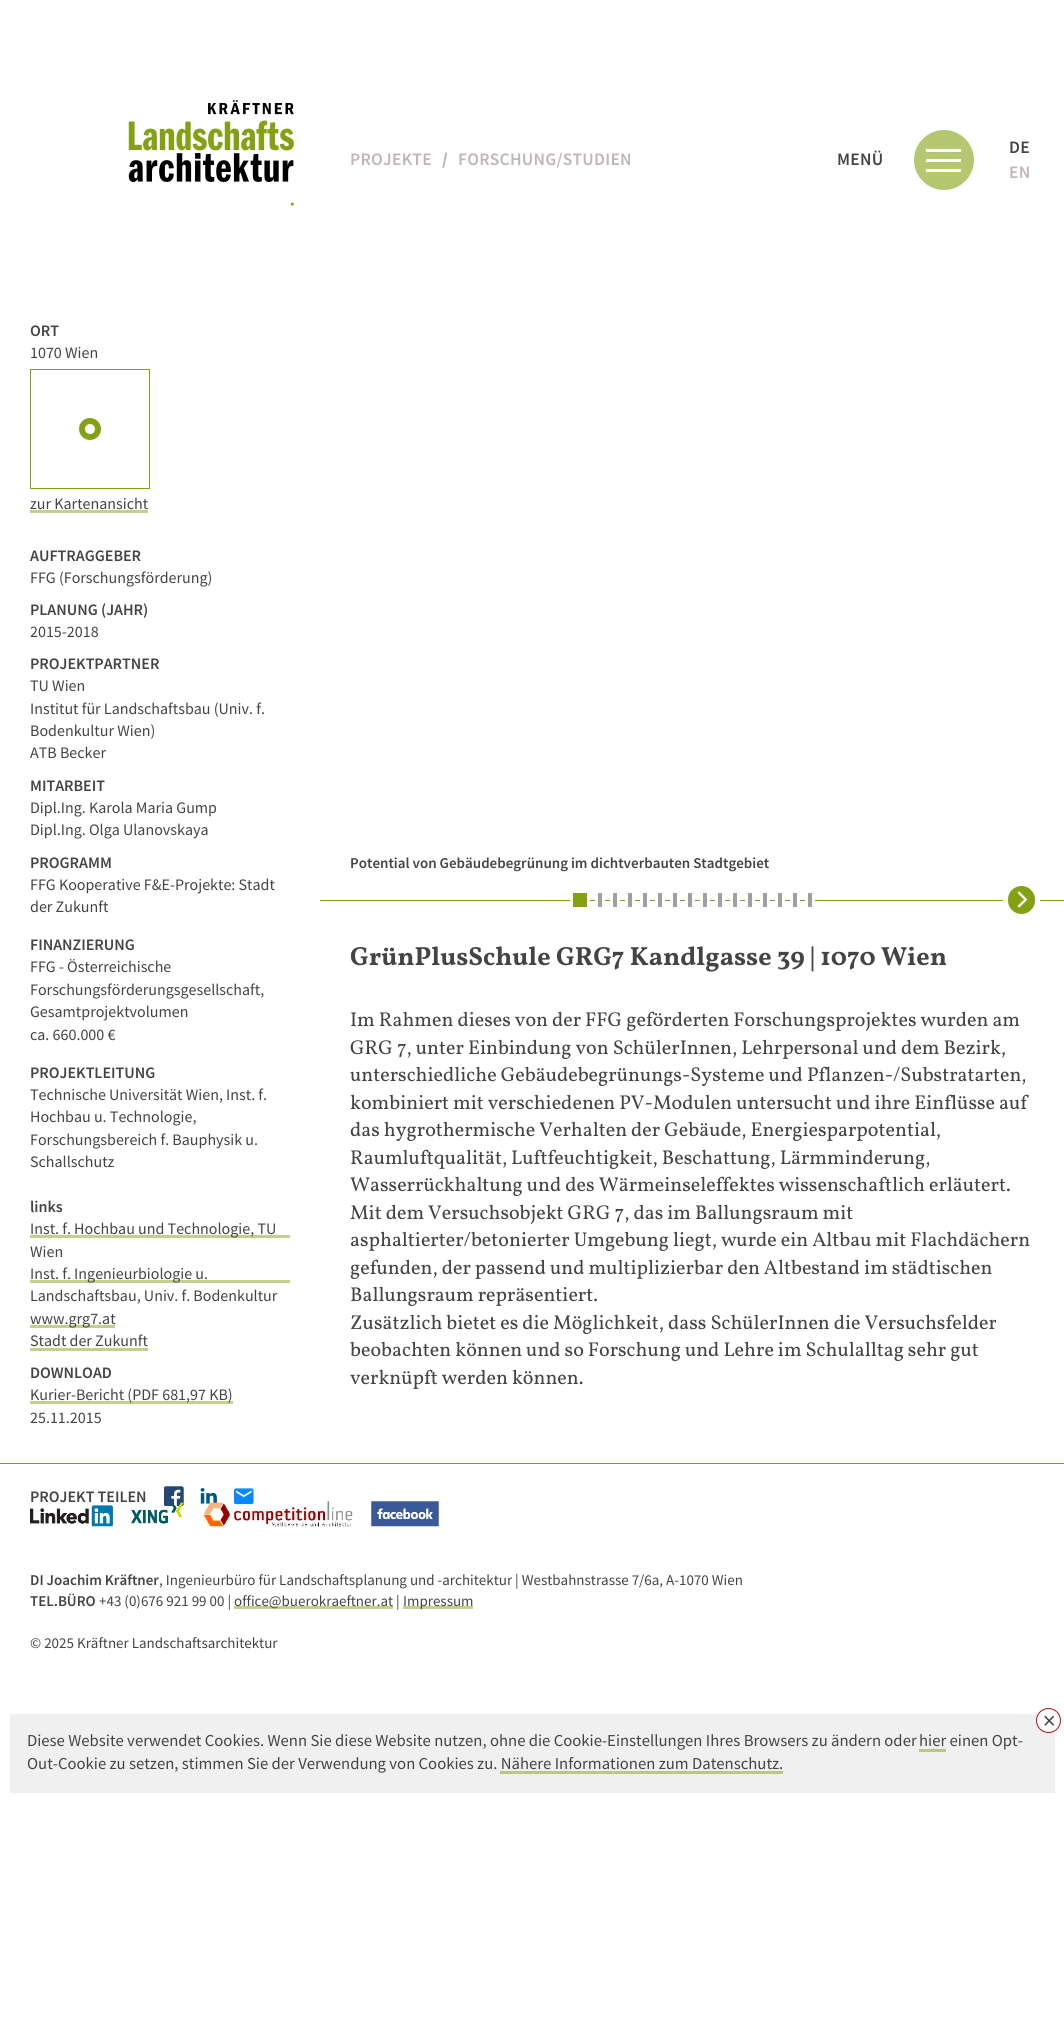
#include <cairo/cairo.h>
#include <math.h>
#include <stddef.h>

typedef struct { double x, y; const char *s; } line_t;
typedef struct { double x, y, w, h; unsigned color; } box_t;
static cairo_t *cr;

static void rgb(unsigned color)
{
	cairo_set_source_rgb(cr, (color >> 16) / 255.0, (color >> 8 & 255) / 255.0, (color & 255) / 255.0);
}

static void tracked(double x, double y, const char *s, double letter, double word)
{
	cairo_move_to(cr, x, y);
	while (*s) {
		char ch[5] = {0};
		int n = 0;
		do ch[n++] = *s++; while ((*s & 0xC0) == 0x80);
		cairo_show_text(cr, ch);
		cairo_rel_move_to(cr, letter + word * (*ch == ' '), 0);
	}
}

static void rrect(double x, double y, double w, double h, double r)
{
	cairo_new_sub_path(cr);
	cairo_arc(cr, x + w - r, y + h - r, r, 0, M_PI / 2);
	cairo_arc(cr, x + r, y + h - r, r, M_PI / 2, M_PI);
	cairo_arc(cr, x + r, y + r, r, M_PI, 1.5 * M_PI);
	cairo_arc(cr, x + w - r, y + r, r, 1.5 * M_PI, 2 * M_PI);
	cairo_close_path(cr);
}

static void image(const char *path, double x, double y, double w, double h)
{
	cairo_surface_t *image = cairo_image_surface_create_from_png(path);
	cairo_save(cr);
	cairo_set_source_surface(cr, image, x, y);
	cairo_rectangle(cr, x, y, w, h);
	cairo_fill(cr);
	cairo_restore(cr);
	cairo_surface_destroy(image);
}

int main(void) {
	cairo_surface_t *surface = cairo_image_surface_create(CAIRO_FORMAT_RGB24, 1064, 2023);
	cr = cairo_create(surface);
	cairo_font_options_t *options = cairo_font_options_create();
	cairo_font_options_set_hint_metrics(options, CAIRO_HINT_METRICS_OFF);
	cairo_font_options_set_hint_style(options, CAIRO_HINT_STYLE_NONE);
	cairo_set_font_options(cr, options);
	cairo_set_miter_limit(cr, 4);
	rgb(0xffffff);
	cairo_paint(cr);
	image("img/1.png", 128, 100, 166, 106);
	rgb(0xb5c771);
	cairo_arc(cr, 944, 160, 30, 0, 2 * M_PI);
	cairo_fill(cr);
	{
		static const box_t items[] = {
			{926, 149, 35, 3, 0xffffff},
			{926, 159, 35, 3, 0xffffff},
			{926, 169, 35, 3, 0xffffff},
		};
		for (size_t i = 0; i < sizeof items / sizeof *items; i++) {
			rgb(items[i].color);
			cairo_rectangle(cr, items[i].x, items[i].y, items[i].w, items[i].h);
			cairo_fill(cr);
		}
	}
	cairo_rectangle(cr, 30.5, 369.5, 119, 119);
	rgb(0x84a113);
	cairo_set_line_width(cr, 1);
	cairo_stroke(cr);
	cairo_arc(cr, 90, 429, 8, 0, 2 * M_PI);
	cairo_set_line_width(cr, 6);
	cairo_stroke(cr);
	{
		static const box_t items[] = {
			{30, 510, 118, 3, 0xc2d089},
			{30, 1235, 260, 3, 0xc2d089},
			{30, 1280, 260, 3, 0xc2d089},
			{30, 1325, 85, 3, 0xc2d089},
			{30, 1348, 118, 3, 0xc2d089},
			{30, 1401, 203, 3, 0xc2d089},
		};
		for (size_t i = 0; i < sizeof items / sizeof *items; i++) {
			rgb(items[i].color);
			cairo_rectangle(cr, items[i].x, items[i].y, items[i].w, items[i].h);
			cairo_fill(cr);
		}
	}
	image("img/2.png", 164, 1486, 20, 20);
	image("img/3.png", 200, 1488, 17, 16);
	image("img/4.png", 234, 1488, 20, 17);
	rgb(0x84a113);
	cairo_rectangle(cr, 320, 900, 744, 1);
	cairo_fill(cr);
	cairo_rectangle(cr, 571.5, 891.5, 17, 17);
	cairo_fill_preserve(cr);
	rgb(0xffffff);
	cairo_set_line_width(cr, 3);
	cairo_stroke(cr);
	rgb(0xa1a1a1);
	cairo_rectangle(cr, 596.5, 891.5, 7, 17);
	cairo_fill_preserve(cr);
	rgb(0xffffff);
	cairo_stroke(cr);
	rgb(0xa1a1a1);
	cairo_rectangle(cr, 611.5, 891.5, 7, 17);
	cairo_fill_preserve(cr);
	rgb(0xffffff);
	cairo_stroke(cr);
	rgb(0xa1a1a1);
	cairo_rectangle(cr, 626.5, 891.5, 7, 17);
	cairo_fill_preserve(cr);
	rgb(0xffffff);
	cairo_stroke(cr);
	rgb(0xa1a1a1);
	cairo_rectangle(cr, 641.5, 891.5, 7, 17);
	cairo_fill_preserve(cr);
	rgb(0xffffff);
	cairo_stroke(cr);
	rgb(0xa1a1a1);
	cairo_rectangle(cr, 656.5, 891.5, 7, 17);
	cairo_fill_preserve(cr);
	rgb(0xffffff);
	cairo_stroke(cr);
	rgb(0xa1a1a1);
	cairo_rectangle(cr, 671.5, 891.5, 7, 17);
	cairo_fill_preserve(cr);
	rgb(0xffffff);
	cairo_stroke(cr);
	rgb(0xa1a1a1);
	cairo_rectangle(cr, 686.5, 891.5, 7, 17);
	cairo_fill_preserve(cr);
	rgb(0xffffff);
	cairo_stroke(cr);
	rgb(0xa1a1a1);
	cairo_rectangle(cr, 701.5, 891.5, 7, 17);
	cairo_fill_preserve(cr);
	rgb(0xffffff);
	cairo_stroke(cr);
	rgb(0xa1a1a1);
	cairo_rectangle(cr, 716.5, 891.5, 7, 17);
	cairo_fill_preserve(cr);
	rgb(0xffffff);
	cairo_stroke(cr);
	rgb(0xa1a1a1);
	cairo_rectangle(cr, 731.5, 891.5, 7, 17);
	cairo_fill_preserve(cr);
	rgb(0xffffff);
	cairo_stroke(cr);
	rgb(0xa1a1a1);
	cairo_rectangle(cr, 746.5, 891.5, 7, 17);
	cairo_fill_preserve(cr);
	rgb(0xffffff);
	cairo_stroke(cr);
	rgb(0xa1a1a1);
	cairo_rectangle(cr, 761.5, 891.5, 7, 17);
	cairo_fill_preserve(cr);
	rgb(0xffffff);
	cairo_stroke(cr);
	rgb(0xa1a1a1);
	cairo_rectangle(cr, 776.5, 891.5, 7, 17);
	cairo_fill_preserve(cr);
	rgb(0xffffff);
	cairo_stroke(cr);
	rgb(0xa1a1a1);
	cairo_rectangle(cr, 791.5, 891.5, 7, 17);
	cairo_fill_preserve(cr);
	rgb(0xffffff);
	cairo_stroke(cr);
	rgb(0xa1a1a1);
	cairo_rectangle(cr, 806.5, 891.5, 7, 17);
	cairo_fill_preserve(cr);
	rgb(0xffffff);
	cairo_stroke(cr);
	rgb(0x84a113);
	rrect(1005.5, 883.5, 32, 33, 16);
	cairo_fill_preserve(cr);
	rgb(0xffffff);
	cairo_set_line_width(cr, 5);
	cairo_stroke(cr);
	image("img/5.png", 1017, 891, 11, 17);
	rgb(0x84a113);
	cairo_rectangle(cr, 0, 1463, 1064, 1);
	cairo_fill(cr);
	image("img/6.png", 30, 1505, 83, 22);
	image("img/8.png", 203, 1501, 150, 26);
	image("img/9.png", 371, 1501, 68, 26);
	{
		static const box_t items[] = {
			{234, 1606, 159, 3, 0xc2d089},
			{403, 1606, 70, 3, 0xc2d089},
			{10, 1714, 1045, 79, 0xf0f0f0},
		};
		for (size_t i = 0; i < sizeof items / sizeof *items; i++) {
			rgb(items[i].color);
			cairo_rectangle(cr, items[i].x, items[i].y, items[i].w, items[i].h);
			cairo_fill(cr);
		}
	}
	rgb(0xffffff);
	cairo_arc(cr, 1048.5, 1720.5, 12, 0, 2 * M_PI);
	cairo_fill_preserve(cr);
	rgb(0xb11116);
	cairo_set_line_width(cr, 1);
	cairo_stroke(cr);
	rgb(0xbac982);
	cairo_rectangle(cr, 919, 1749, 27, 3);
	cairo_fill(cr);
	cairo_select_font_face(cr, "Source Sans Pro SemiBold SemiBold", CAIRO_FONT_SLANT_NORMAL, CAIRO_FONT_WEIGHT_NORMAL);
	cairo_set_font_size(cr, 17.5);
	rgb(0xbfb5b5);
	tracked(350, 165, "PROJEKTE", 0.25, 0);
	cairo_select_font_face(cr, "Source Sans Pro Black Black", CAIRO_FONT_SLANT_NORMAL, CAIRO_FONT_WEIGHT_NORMAL);
	tracked(442, 165, "/", 0.25, 0);
	cairo_select_font_face(cr, "Source Sans Pro SemiBold SemiBold", CAIRO_FONT_SLANT_NORMAL, CAIRO_FONT_WEIGHT_NORMAL);
	tracked(458, 165, "FORSCHUNG/STUDIEN", 0.25, 0);
	rgb(0x444444);
	tracked(837, 165, "MENÜ", 0.25, 0);
	tracked(1009, 153, "DE", 0.25, 0);
	rgb(0xbfb5b5);
	tracked(1009, 178, "EN", 0.25, 0);
	cairo_set_font_size(cr, 16);
	rgb(0x444444);
	cairo_move_to(cr, 30, 336);
	cairo_show_text(cr, "ORT");
	cairo_select_font_face(cr, "Source Sans Pro", CAIRO_FONT_SLANT_NORMAL, CAIRO_FONT_WEIGHT_NORMAL);
	cairo_move_to(cr, 30, 358);
	cairo_show_text(cr, "1070 Wien");
	cairo_move_to(cr, 30, 509);
	cairo_show_text(cr, "zur Kartenansicht");
	cairo_select_font_face(cr, "Source Sans Pro SemiBold SemiBold", CAIRO_FONT_SLANT_NORMAL, CAIRO_FONT_WEIGHT_NORMAL);
	cairo_move_to(cr, 30, 561);
	cairo_show_text(cr, "AUFTRAGGEBER");
	cairo_select_font_face(cr, "Source Sans Pro", CAIRO_FONT_SLANT_NORMAL, CAIRO_FONT_WEIGHT_NORMAL);
	cairo_move_to(cr, 30, 583);
	cairo_show_text(cr, "FFG (Forschungsförderung)");
	cairo_select_font_face(cr, "Source Sans Pro SemiBold SemiBold", CAIRO_FONT_SLANT_NORMAL, CAIRO_FONT_WEIGHT_NORMAL);
	cairo_move_to(cr, 30, 615);
	cairo_show_text(cr, "PLANUNG (JAHR)");
	cairo_select_font_face(cr, "Source Sans Pro", CAIRO_FONT_SLANT_NORMAL, CAIRO_FONT_WEIGHT_NORMAL);
	cairo_move_to(cr, 30, 637);
	cairo_show_text(cr, "2015-2018");
	cairo_select_font_face(cr, "Source Sans Pro SemiBold SemiBold", CAIRO_FONT_SLANT_NORMAL, CAIRO_FONT_WEIGHT_NORMAL);
	cairo_move_to(cr, 30, 669);
	cairo_show_text(cr, "PROJEKTPARTNER");
	cairo_select_font_face(cr, "Source Sans Pro", CAIRO_FONT_SLANT_NORMAL, CAIRO_FONT_WEIGHT_NORMAL);
	{
		static const line_t items[] = {
			{30, 691, "TU Wien"},
			{30, 714, "Institut für Landschaftsbau (Univ. f."},
			{30, 736, "Bodenkultur Wien)"},
			{30, 758, "ATB Becker"},
		};
		for (size_t i = 0; i < sizeof items / sizeof *items; i++) {
			cairo_move_to(cr, items[i].x, items[i].y);
			cairo_show_text(cr, items[i].s);
		}
	}
	cairo_select_font_face(cr, "Source Sans Pro SemiBold SemiBold", CAIRO_FONT_SLANT_NORMAL, CAIRO_FONT_WEIGHT_NORMAL);
	cairo_move_to(cr, 30, 791);
	cairo_show_text(cr, "MITARBEIT");
	cairo_select_font_face(cr, "Source Sans Pro", CAIRO_FONT_SLANT_NORMAL, CAIRO_FONT_WEIGHT_NORMAL);
	cairo_move_to(cr, 30, 813);
	cairo_show_text(cr, "Dipl.Ing. Karola Maria Gump");
	cairo_move_to(cr, 30, 835);
	cairo_show_text(cr, "Dipl.Ing. Olga Ulanovskaya");
	cairo_select_font_face(cr, "Source Sans Pro SemiBold SemiBold", CAIRO_FONT_SLANT_NORMAL, CAIRO_FONT_WEIGHT_NORMAL);
	cairo_move_to(cr, 30, 868);
	cairo_show_text(cr, "PROGRAMM");
	cairo_select_font_face(cr, "Source Sans Pro", CAIRO_FONT_SLANT_NORMAL, CAIRO_FONT_WEIGHT_NORMAL);
	cairo_move_to(cr, 30, 890);
	cairo_show_text(cr, "FFG Kooperative F&E-Projekte: Stadt");
	cairo_move_to(cr, 30, 912);
	cairo_show_text(cr, "der Zukunft");
	cairo_select_font_face(cr, "Source Sans Pro SemiBold SemiBold", CAIRO_FONT_SLANT_NORMAL, CAIRO_FONT_WEIGHT_NORMAL);
	cairo_move_to(cr, 30, 950);
	cairo_show_text(cr, "FINANZIERUNG");
	cairo_select_font_face(cr, "Source Sans Pro", CAIRO_FONT_SLANT_NORMAL, CAIRO_FONT_WEIGHT_NORMAL);
	{
		static const line_t items[] = {
			{30, 972, "FFG - Österreichische"},
			{30, 995, "Forschungsförderungsgesellschaft,"},
			{30, 1017, "Gesamtprojektvolumen"},
			{30, 1040, "ca. 660.000 €"},
		};
		for (size_t i = 0; i < sizeof items / sizeof *items; i++) {
			cairo_move_to(cr, items[i].x, items[i].y);
			cairo_show_text(cr, items[i].s);
		}
	}
	cairo_select_font_face(cr, "Source Sans Pro SemiBold SemiBold", CAIRO_FONT_SLANT_NORMAL, CAIRO_FONT_WEIGHT_NORMAL);
	cairo_move_to(cr, 30, 1078);
	cairo_show_text(cr, "PROJEKTLEITUNG");
	cairo_select_font_face(cr, "Source Sans Pro", CAIRO_FONT_SLANT_NORMAL, CAIRO_FONT_WEIGHT_NORMAL);
	{
		static const line_t items[] = {
			{30, 1100, "Technische Universität Wien, Inst. f."},
			{30, 1122, "Hochbau u. Technologie,"},
			{30, 1145, "Forschungsbereich f. Bauphysik u."},
			{30, 1167, "Schallschutz"},
		};
		for (size_t i = 0; i < sizeof items / sizeof *items; i++) {
			cairo_move_to(cr, items[i].x, items[i].y);
			cairo_show_text(cr, items[i].s);
		}
	}
	cairo_select_font_face(cr, "Source Sans Pro SemiBold SemiBold", CAIRO_FONT_SLANT_NORMAL, CAIRO_FONT_WEIGHT_NORMAL);
	cairo_move_to(cr, 30, 1212);
	cairo_show_text(cr, "links");
	cairo_select_font_face(cr, "Source Sans Pro", CAIRO_FONT_SLANT_NORMAL, CAIRO_FONT_WEIGHT_NORMAL);
	{
		static const line_t items[] = {
			{30, 1234, "Inst. f. Hochbau und Technologie, TU"},
			{30, 1257, "Wien"},
			{30, 1279, "Inst. f. Ingenieurbiologie u."},
			{30, 1301, "Landschaftsbau, Univ. f. Bodenkultur"},
			{30, 1324, "www.grg7.at"},
			{30, 1346, "Stadt der Zukunft"},
		};
		for (size_t i = 0; i < sizeof items / sizeof *items; i++) {
			cairo_move_to(cr, items[i].x, items[i].y);
			cairo_show_text(cr, items[i].s);
		}
	}
	cairo_select_font_face(cr, "Source Sans Pro SemiBold SemiBold", CAIRO_FONT_SLANT_NORMAL, CAIRO_FONT_WEIGHT_NORMAL);
	cairo_move_to(cr, 30, 1378);
	cairo_show_text(cr, "DOWNLOAD");
	cairo_select_font_face(cr, "Source Sans Pro", CAIRO_FONT_SLANT_NORMAL, CAIRO_FONT_WEIGHT_NORMAL);
	cairo_move_to(cr, 30, 1400);
	cairo_show_text(cr, "Kurier-Bericht (PDF 681,97 KB)");
	cairo_move_to(cr, 30, 1423);
	cairo_show_text(cr, "25.11.2015");
	cairo_select_font_face(cr, "Source Sans Pro SemiBold SemiBold", CAIRO_FONT_SLANT_NORMAL, CAIRO_FONT_WEIGHT_NORMAL);
	cairo_move_to(cr, 30, 1502);
	cairo_show_text(cr, "PROJEKT TEILEN");
	cairo_set_font_size(cr, 15);
	cairo_move_to(cr, 350, 868);
	cairo_show_text(cr, "Potential von Gebäudebegrünung im dichtverbauten Stadtgebiet");
	cairo_select_font_face(cr, "Vollkorn", CAIRO_FONT_SLANT_NORMAL, CAIRO_FONT_WEIGHT_BOLD);
	cairo_set_font_size(cr, 26.25);
	cairo_move_to(cr, 350, 965);
	cairo_show_text(cr, "GrünPlusSchule GRG7 Kandlgasse 39 | 1070 Wien");
	cairo_select_font_face(cr, "Vollkorn", CAIRO_FONT_SLANT_NORMAL, CAIRO_FONT_WEIGHT_NORMAL);
	cairo_set_font_size(cr, 20);
	{
		static const line_t items[] = {
			{350, 1026, "Im Rahmen dieses von der FFG geförderten Forschungsprojektes wurden am"},
			{350, 1054, "GRG 7, unter Einbindung von SchülerInnen, Lehrpersonal und dem Bezirk,"},
			{350, 1081, "unterschiedliche Gebäudebegrünungs-Systeme und Pflanzen-/Substratarten,"},
			{350, 1109, "kombiniert mit verschiedenen PV-Modulen untersucht und ihre Einflüsse auf"},
			{350, 1136, "das hygrothermische Verhalten der Gebäude, Energiesparpotential,"},
			{350, 1164, "Raumluftqualität, Luftfeuchtigkeit, Beschattung, Lärmminderung,"},
			{350, 1191, "Wasserrückhaltung und des Wärmeinseleffektes wissenschaftlich erläutert."},
			{350, 1219, "Mit dem Versuchsobjekt GRG 7, das im Ballungsraum mit"},
			{350, 1246, "asphaltierter/betonierter Umgebung liegt, wurde ein Altbau mit Flachdächern"},
			{350, 1274, "gefunden, der passend und multiplizierbar den Altbestand im städtischen"},
			{350, 1301, "Ballungsraum repräsentiert."},
			{350, 1329, "Zusätzlich bietet es die Möglichkeit, dass SchülerInnen die Versuchsfelder"},
			{350, 1356, "beobachten können und so Forschung und Lehre im Schulalltag sehr gut"},
			{350, 1384, "verknüpft werden können."},
		};
		for (size_t i = 0; i < sizeof items / sizeof *items; i++) {
			cairo_move_to(cr, items[i].x, items[i].y);
			cairo_show_text(cr, items[i].s);
		}
	}
	image("img/7.png", 131, 1502, 53, 22);
	cairo_select_font_face(cr, "Source Sans Pro SemiBold SemiBold", CAIRO_FONT_SLANT_NORMAL, CAIRO_FONT_WEIGHT_NORMAL);
	cairo_set_font_size(cr, 15);
	cairo_move_to(cr, 30, 1585);
	cairo_show_text(cr, "DI Joachim Kräftner");
	cairo_select_font_face(cr, "Source Sans Pro", CAIRO_FONT_SLANT_NORMAL, CAIRO_FONT_WEIGHT_NORMAL);
	cairo_move_to(cr, 159, 1585);
	cairo_show_text(cr, ", Ingenieurbüro für Landschaftsplanung und -architektur | Westbahnstrasse 7/6a, A-1070 Wien");
	cairo_select_font_face(cr, "Source Sans Pro SemiBold SemiBold", CAIRO_FONT_SLANT_NORMAL, CAIRO_FONT_WEIGHT_NORMAL);
	cairo_move_to(cr, 30, 1606);
	cairo_show_text(cr, "TEL.BÜRO");
	cairo_select_font_face(cr, "Source Sans Pro", CAIRO_FONT_SLANT_NORMAL, CAIRO_FONT_WEIGHT_NORMAL);
	{
		static const line_t items[] = {
			{99, 1606, "+43 (0)676 921 99 00 |"},
			{234, 1606, "office@buerokraeftner.at |"},
			{403, 1606, "Impressum"},
			{30, 1648, "© 2025 Kräftner Landschaftsarchitektur"},
		};
		for (size_t i = 0; i < sizeof items / sizeof *items; i++) {
			cairo_move_to(cr, items[i].x, items[i].y);
			cairo_show_text(cr, items[i].s);
		}
	}
	cairo_set_font_size(cr, 25);
	cairo_move_to(cr, 1043, 1729);
	cairo_show_text(cr, "×");
	cairo_set_font_size(cr, 16.67);
	{
		static const line_t items[] = {
			{27, 1746, "Diese Website verwendet Cookies. Wenn Sie diese Website nutzen, ohne die Cookie-Einstellungen Ihres Browsers zu ändern oder"},
			{919, 1746, "hier einen Opt-"},
			{27, 1769, "Out-Cookie zu setzen, stimmen Sie der Verwendung von Cookies zu. Nähere Informationen zum Datenschutz."},
		};
		for (size_t i = 0; i < sizeof items / sizeof *items; i++) {
			cairo_move_to(cr, items[i].x, items[i].y);
			cairo_show_text(cr, items[i].s);
		}
	}
	rgb(0xbac982);
	cairo_rectangle(cr, 500, 1771, 283, 3);
	cairo_fill(cr);
	cairo_surface_write_to_png(surface, "page.png");
	cairo_font_options_destroy(options);
	cairo_destroy(cr);
	cairo_surface_destroy(surface);
	return 0;
}
